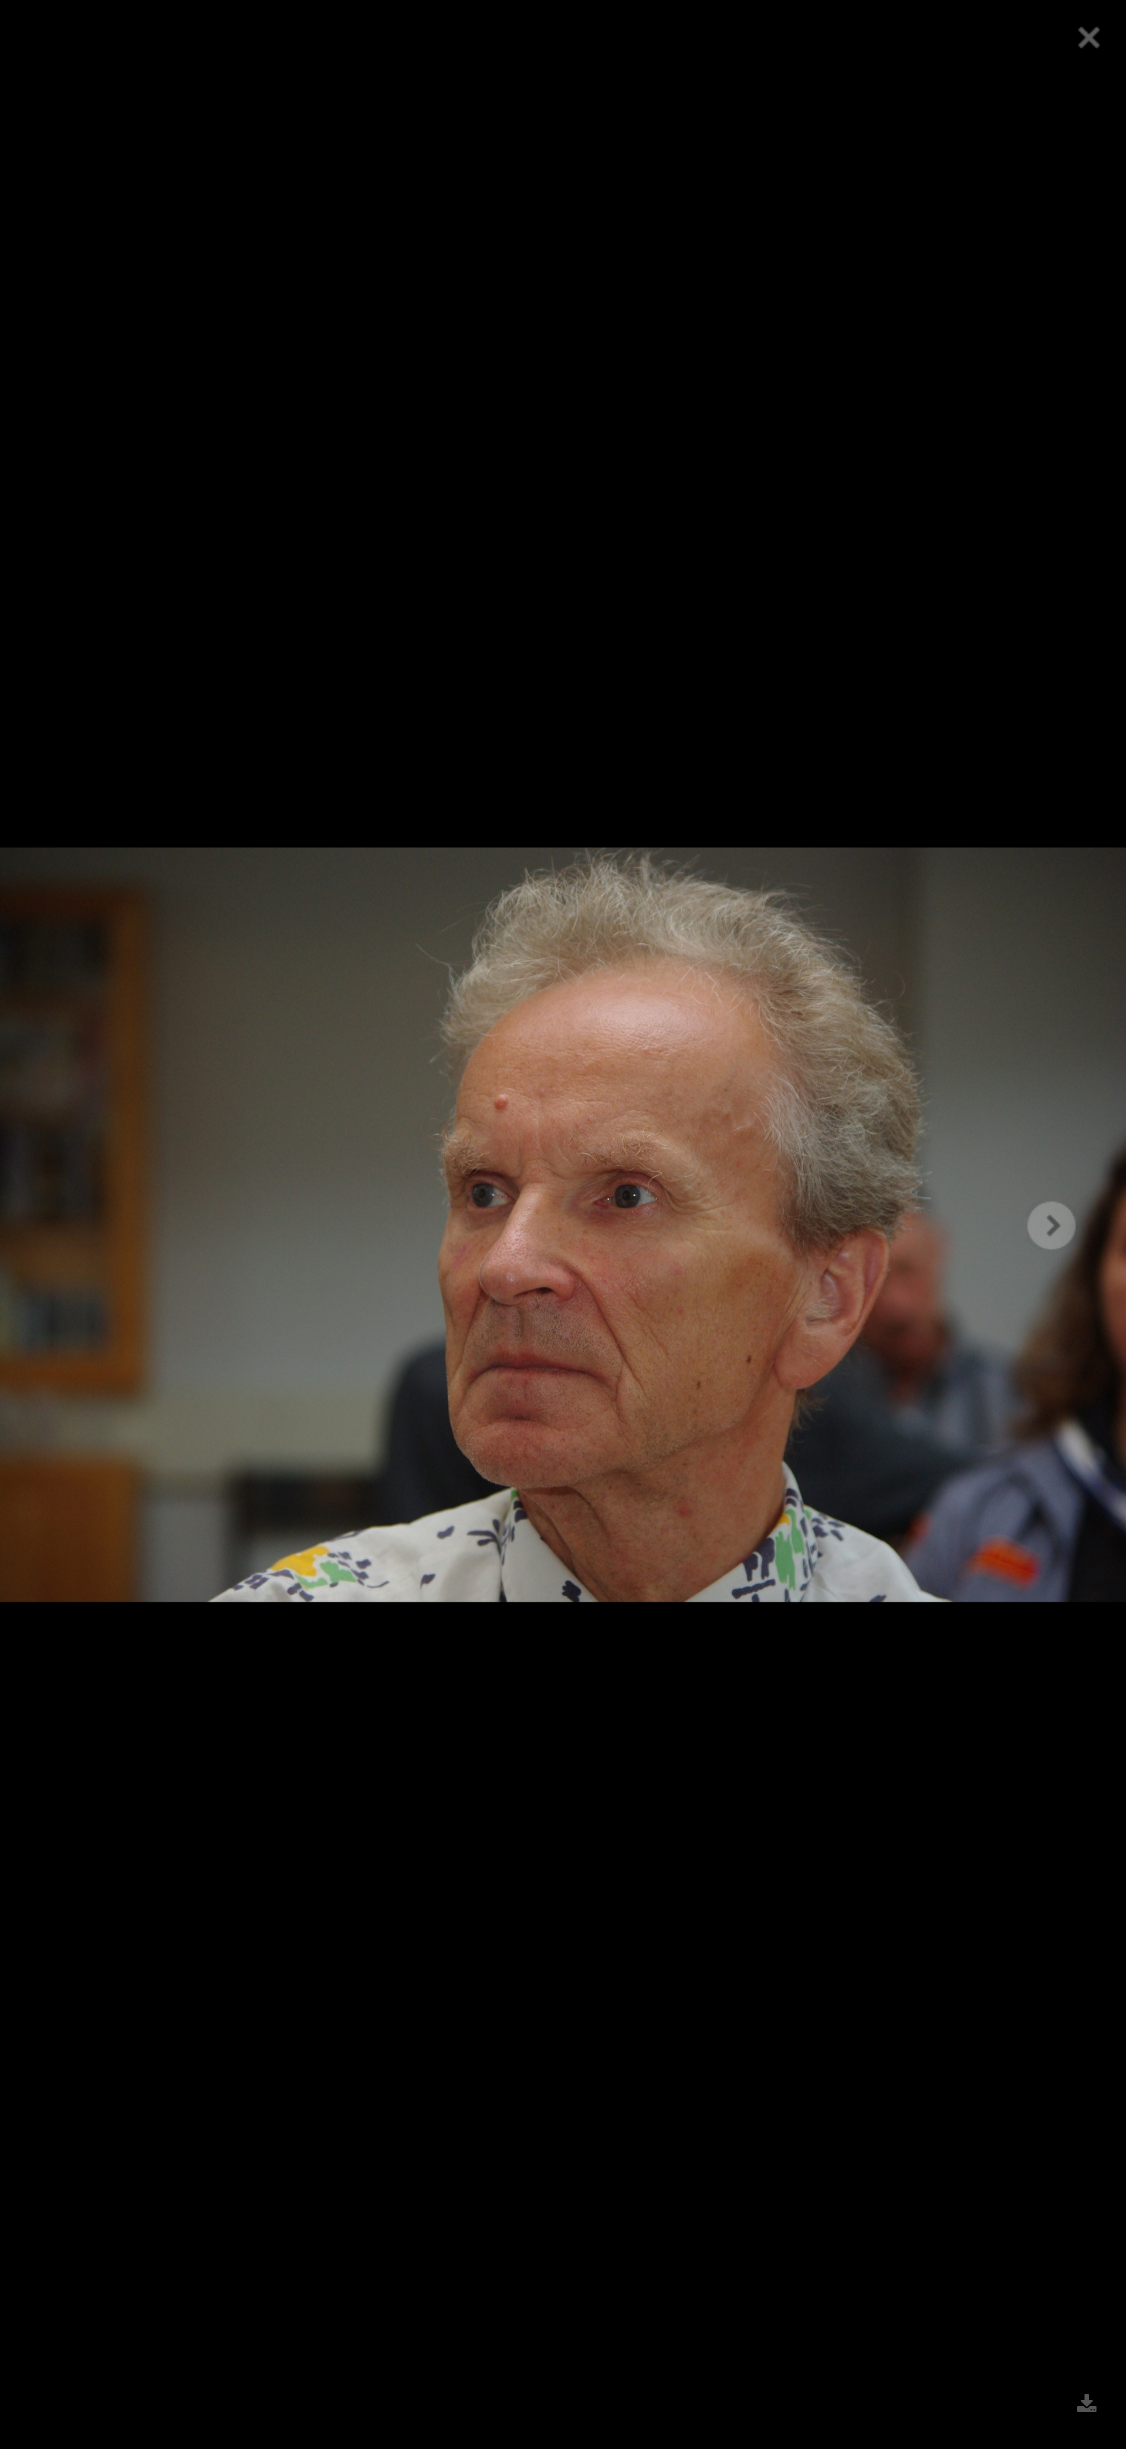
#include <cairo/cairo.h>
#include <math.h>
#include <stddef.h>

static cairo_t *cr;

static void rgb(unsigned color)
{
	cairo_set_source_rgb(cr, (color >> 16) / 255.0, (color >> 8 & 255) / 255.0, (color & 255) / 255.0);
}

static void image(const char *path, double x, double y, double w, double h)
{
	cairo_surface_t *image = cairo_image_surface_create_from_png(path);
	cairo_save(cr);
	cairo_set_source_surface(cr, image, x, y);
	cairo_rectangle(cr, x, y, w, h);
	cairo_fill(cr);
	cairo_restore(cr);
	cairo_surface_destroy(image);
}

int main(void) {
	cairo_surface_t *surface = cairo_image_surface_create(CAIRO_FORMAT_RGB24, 1126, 2449);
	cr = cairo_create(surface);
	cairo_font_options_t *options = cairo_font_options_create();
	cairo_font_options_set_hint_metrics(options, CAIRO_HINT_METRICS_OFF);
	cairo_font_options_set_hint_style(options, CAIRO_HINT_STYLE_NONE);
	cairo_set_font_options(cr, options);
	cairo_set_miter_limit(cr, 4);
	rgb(0x000000);
	cairo_paint(cr);
	image("img/1.png", 0, 847, 1126, 756);
	image("img/2.png", 1078, 26, 22, 23);
	image("img/3.png", 1027, 1201, 49, 49);
	image("img/4.png", 1077, 2394, 20, 18);
	cairo_surface_write_to_png(surface, "page.png");
	cairo_font_options_destroy(options);
	cairo_destroy(cr);
	cairo_surface_destroy(surface);
	return 0;
}
